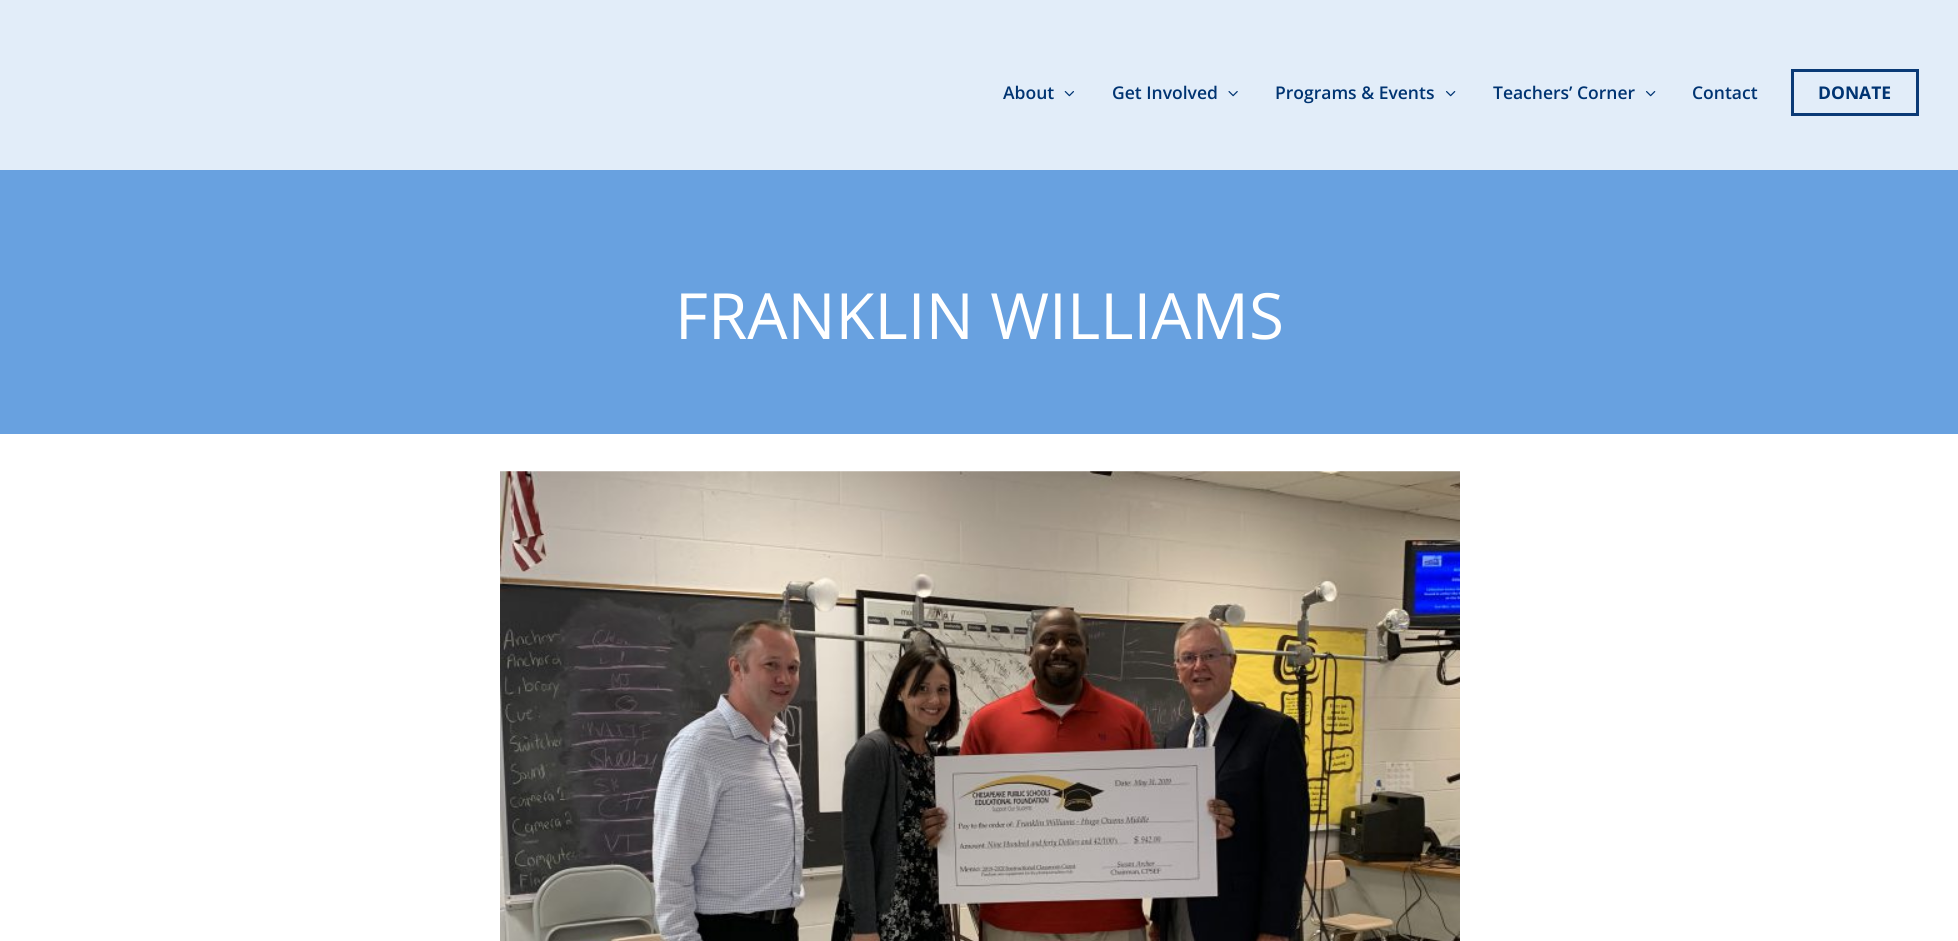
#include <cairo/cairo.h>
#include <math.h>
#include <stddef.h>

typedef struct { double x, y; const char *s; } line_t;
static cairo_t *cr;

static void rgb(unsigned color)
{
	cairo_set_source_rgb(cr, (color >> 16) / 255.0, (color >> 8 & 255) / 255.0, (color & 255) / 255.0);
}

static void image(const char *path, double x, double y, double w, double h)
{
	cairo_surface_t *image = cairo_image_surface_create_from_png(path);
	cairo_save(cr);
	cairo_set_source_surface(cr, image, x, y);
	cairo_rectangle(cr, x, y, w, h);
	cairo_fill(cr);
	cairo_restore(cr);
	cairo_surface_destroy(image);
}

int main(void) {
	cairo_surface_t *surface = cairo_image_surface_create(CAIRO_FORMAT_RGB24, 1958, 941);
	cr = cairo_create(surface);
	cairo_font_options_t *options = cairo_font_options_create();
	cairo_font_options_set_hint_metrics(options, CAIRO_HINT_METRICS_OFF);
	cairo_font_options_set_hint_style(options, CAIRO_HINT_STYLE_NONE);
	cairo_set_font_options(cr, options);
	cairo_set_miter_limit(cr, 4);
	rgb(0xffffff);
	cairo_paint(cr);
	rgb(0xe2edf9);
	cairo_rectangle(cr, 0, 0, 1958, 170);
	cairo_fill(cr);
	image("img/1.png", 1064, 91, 10, 6);
	image("img/2.png", 1228, 91, 10, 6);
	image("img/3.png", 1446, 91, 10, 6);
	image("img/3.png", 1646, 91, 10, 6);
	cairo_rectangle(cr, 1792.5, 70.5, 125, 44);
	rgb(0x0a3a76);
	cairo_set_line_width(cr, 3);
	cairo_stroke(cr);
	rgb(0x68a1e0);
	cairo_rectangle(cr, 0, 170, 1958, 264);
	cairo_fill(cr);
	image("img/4.png", 500, 471, 960, 470);
	cairo_select_font_face(cr, "Open Sans SemiBold", CAIRO_FONT_SLANT_NORMAL, CAIRO_FONT_WEIGHT_NORMAL);
	cairo_set_font_size(cr, 17.5);
	rgb(0x003472);
	{
		static const line_t items[] = {
			{1003, 99, "About"},
			{1112, 99, "Get Involved"},
			{1275, 99, "Programs & Events"},
			{1493, 99, "Teachers’ Corner"},
			{1692, 99, "Contact"},
		};
		for (size_t i = 0; i < sizeof items / sizeof *items; i++) {
			cairo_move_to(cr, items[i].x, items[i].y);
			cairo_show_text(cr, items[i].s);
		}
	}
	cairo_select_font_face(cr, "Open Sans", CAIRO_FONT_SLANT_NORMAL, CAIRO_FONT_WEIGHT_BOLD);
	cairo_move_to(cr, 1818, 99);
	cairo_show_text(cr, "DONATE");
	cairo_select_font_face(cr, "Open Sans", CAIRO_FONT_SLANT_NORMAL, CAIRO_FONT_WEIGHT_NORMAL);
	cairo_set_font_size(cr, 63.75);
	rgb(0xffffff);
	cairo_move_to(cr, 675, 339);
	cairo_show_text(cr, "FRANKLIN WILLIAMS");
	cairo_surface_write_to_png(surface, "page.png");
	cairo_font_options_destroy(options);
	cairo_destroy(cr);
	cairo_surface_destroy(surface);
	return 0;
}
